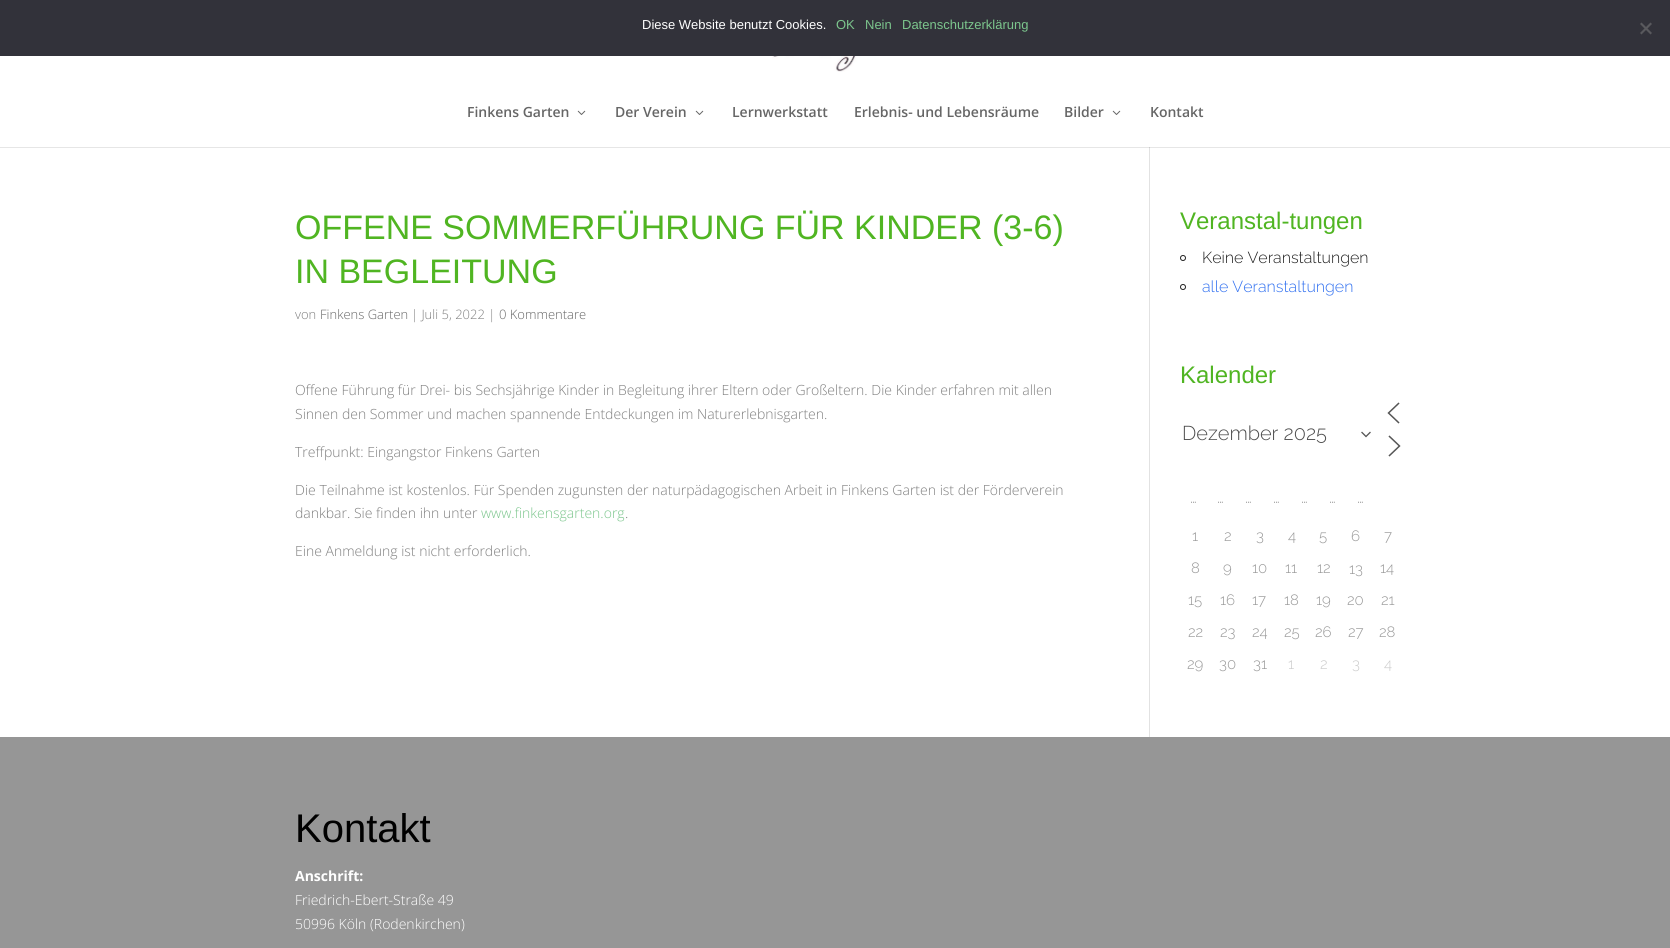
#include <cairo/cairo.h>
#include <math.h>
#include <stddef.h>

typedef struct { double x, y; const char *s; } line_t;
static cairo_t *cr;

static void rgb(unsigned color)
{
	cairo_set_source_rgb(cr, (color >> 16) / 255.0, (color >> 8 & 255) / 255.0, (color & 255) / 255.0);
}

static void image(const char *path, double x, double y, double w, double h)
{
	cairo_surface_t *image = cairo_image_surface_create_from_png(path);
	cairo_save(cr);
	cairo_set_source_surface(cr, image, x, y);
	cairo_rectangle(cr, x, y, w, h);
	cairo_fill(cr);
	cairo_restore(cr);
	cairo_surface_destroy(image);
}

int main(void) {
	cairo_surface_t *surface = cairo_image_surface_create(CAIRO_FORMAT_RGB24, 1670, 948);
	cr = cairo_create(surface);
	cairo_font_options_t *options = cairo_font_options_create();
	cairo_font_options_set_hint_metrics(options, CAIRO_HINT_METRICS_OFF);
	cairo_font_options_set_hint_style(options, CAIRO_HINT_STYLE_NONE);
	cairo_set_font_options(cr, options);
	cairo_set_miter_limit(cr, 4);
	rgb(0xffffff);
	cairo_paint(cr);
	rgb(0xe6e6e6);
	cairo_rectangle(cr, 0, 147, 1670, 1);
	cairo_fill(cr);
	rgb(0x32323a);
	cairo_rectangle(cr, 0, 0, 1670, 56);
	cairo_fill(cr);
	rgb(0x59595d);
	cairo_new_path(cr);
	cairo_move_to(cr, 1650.5, 22.5);
	cairo_line_to(cr, 1652, 24);
	cairo_line_to(cr, 1641.5, 34.5);
	cairo_line_to(cr, 1640, 33);
	cairo_close_path(cr);
	cairo_fill(cr);
	cairo_new_path(cr);
	cairo_move_to(cr, 1640, 24);
	cairo_line_to(cr, 1641.5, 22.5);
	cairo_line_to(cr, 1652, 33);
	cairo_line_to(cr, 1650.5, 34.5);
	cairo_close_path(cr);
	cairo_fill(cr);
	image("img/1.png", 772, 56, 130, 16);
	image("img/2.png", 577, 110, 9, 5);
	image("img/2.png", 695, 110, 9, 5);
	image("img/2.png", 1112, 110, 9, 5);
	rgb(0xe2e2e2);
	cairo_rectangle(cr, 1149, 147, 1, 590);
	cairo_fill(cr);
	rgb(0xcbcbcb);
	cairo_rectangle(cr, 1149, 147, 1, 1);
	cairo_fill(cr);
	cairo_arc(cr, 1183, 258, 2.5, 0, 2 * M_PI);
	rgb(0x212121);
	cairo_set_line_width(cr, 1);
	cairo_stroke(cr);
	cairo_arc(cr, 1183, 287, 2.5, 0, 2 * M_PI);
	cairo_stroke(cr);
	cairo_new_path(cr);
	cairo_move_to(cr, 1362, 432.5);
	cairo_line_to(cr, 1366, 436.5);
	cairo_line_to(cr, 1370, 432.5);
	rgb(0x555555);
	cairo_set_line_width(cr, 1.3);
	cairo_set_line_cap(cr, CAIRO_LINE_CAP_SQUARE);
	cairo_stroke(cr);
	cairo_new_path(cr);
	cairo_move_to(cr, 1398.5, 422.5);
	cairo_line_to(cr, 1388.5, 413);
	cairo_line_to(cr, 1398.5, 403.5);
	cairo_move_to(cr, 1389.5, 455.5);
	cairo_line_to(cr, 1399.5, 446);
	cairo_line_to(cr, 1389.5, 436.5);
	cairo_set_line_width(cr, 1.5);
	cairo_stroke(cr);
	rgb(0x969696);
	cairo_rectangle(cr, 0, 737, 1670, 211);
	cairo_fill(cr);
	cairo_select_font_face(cr, "Liberation Sans", CAIRO_FONT_SLANT_NORMAL, CAIRO_FONT_WEIGHT_NORMAL);
	cairo_set_font_size(cr, 13);
	rgb(0xffffff);
	cairo_move_to(cr, 642, 29);
	cairo_show_text(cr, "Diese Website benutzt Cookies.");
	rgb(0x7cc68d);
	{
		static const line_t items[] = {
			{836, 29, "OK"},
			{865, 29, "Nein"},
			{902, 29, "Datenschutzerklärung"},
		};
		for (size_t i = 0; i < sizeof items / sizeof *items; i++) {
			cairo_move_to(cr, items[i].x, items[i].y);
			cairo_show_text(cr, items[i].s);
		}
	}
	cairo_select_font_face(cr, "Open Sans SemiBold", CAIRO_FONT_SLANT_NORMAL, CAIRO_FONT_WEIGHT_NORMAL);
	cairo_set_font_size(cr, 14);
	rgb(0x666666);
	{
		static const line_t items[] = {
			{467, 117, "Finkens Garten"},
			{615, 117, "Der Verein"},
			{732, 117, "Lernwerkstatt"},
			{854, 117, "Erlebnis- und Lebensräume"},
			{1064, 117, "Bilder"},
			{1150, 117, "Kontakt"},
		};
		for (size_t i = 0; i < sizeof items / sizeof *items; i++) {
			cairo_move_to(cr, items[i].x, items[i].y);
			cairo_show_text(cr, items[i].s);
		}
	}
	cairo_select_font_face(cr, "Liberation Sans", CAIRO_FONT_SLANT_NORMAL, CAIRO_FONT_WEIGHT_NORMAL);
	cairo_set_font_size(cr, 34);
	rgb(0x50b522);
	cairo_move_to(cr, 295, 239);
	cairo_show_text(cr, "OFFENE SOMMERFÜHRUNG FÜR KINDER (3-6)");
	cairo_move_to(cr, 295, 283);
	cairo_show_text(cr, "IN BEGLEITUNG");
	cairo_select_font_face(cr, "Open Sans Light", CAIRO_FONT_SLANT_NORMAL, CAIRO_FONT_WEIGHT_NORMAL);
	cairo_set_font_size(cr, 13);
	rgb(0x7f7f7f);
	cairo_move_to(cr, 295, 319);
	cairo_show_text(cr, "von");
	rgb(0x666666);
	cairo_move_to(cr, 320, 319);
	cairo_show_text(cr, "Finkens Garten");
	rgb(0x7f7f7f);
	cairo_move_to(cr, 411, 319);
	cairo_show_text(cr, "| Juli 5, 2022 |");
	rgb(0x666666);
	cairo_move_to(cr, 499, 319);
	cairo_show_text(cr, "0 Kommentare");
	cairo_set_font_size(cr, 14);
	rgb(0x7f7f7f);
	{
		static const line_t items[] = {
			{295, 395, "Offene Führung für Drei- bis Sechsjährige Kinder in Begleitung ihrer Eltern oder Großeltern. Die Kinder erfahren mit allen"},
			{295, 419, "Sinnen den Sommer und machen spannende Entdeckungen im Naturerlebnisgarten."},
			{295, 457, "Treffpunkt: Eingangstor Finkens Garten"},
			{295, 495, "Die Teilnahme ist kostenlos. Für Spenden zugunsten der naturpädagogischen Arbeit in Finkens Garten ist der Förderverein"},
			{295, 518, "dankbar. Sie finden ihn unter"},
		};
		for (size_t i = 0; i < sizeof items / sizeof *items; i++) {
			cairo_move_to(cr, items[i].x, items[i].y);
			cairo_show_text(cr, items[i].s);
		}
	}
	rgb(0x7cc68d);
	cairo_move_to(cr, 481, 518);
	cairo_show_text(cr, "www.finkensgarten.org");
	rgb(0x7f7f7f);
	cairo_move_to(cr, 625, 518);
	cairo_show_text(cr, ".");
	cairo_move_to(cr, 295, 556);
	cairo_show_text(cr, "Eine Anmeldung ist nicht erforderlich.");
	cairo_select_font_face(cr, "Liberation Sans", CAIRO_FONT_SLANT_NORMAL, CAIRO_FONT_WEIGHT_NORMAL);
	cairo_set_font_size(cr, 24);
	rgb(0x50b522);
	cairo_move_to(cr, 1180, 229);
	cairo_show_text(cr, "Veranstal-tungen");
	cairo_select_font_face(cr, "Raleway Light", CAIRO_FONT_SLANT_NORMAL, CAIRO_FONT_WEIGHT_NORMAL);
	cairo_set_font_size(cr, 16);
	rgb(0x212121);
	cairo_move_to(cr, 1202, 263);
	cairo_show_text(cr, "Keine Veranstaltungen");
	rgb(0x3372f0);
	cairo_move_to(cr, 1202, 292);
	cairo_show_text(cr, "alle Veranstaltungen");
	cairo_select_font_face(cr, "Liberation Sans", CAIRO_FONT_SLANT_NORMAL, CAIRO_FONT_WEIGHT_NORMAL);
	cairo_set_font_size(cr, 24);
	rgb(0x50b522);
	cairo_move_to(cr, 1180, 383);
	cairo_show_text(cr, "Kalender");
	cairo_select_font_face(cr, "Raleway Light", CAIRO_FONT_SLANT_NORMAL, CAIRO_FONT_WEIGHT_NORMAL);
	cairo_set_font_size(cr, 20);
	rgb(0x4e4e4e);
	cairo_move_to(cr, 1182, 440);
	cairo_show_text(cr, "Dezember 2025");
	cairo_set_font_size(cr, 16);
	rgb(0x888888);
	{
		static const line_t items[] = {
			{1190, 503, "…"},
			{1217, 503, "…"},
			{1245, 503, "…"},
			{1273, 503, "…"},
			{1301, 503, "…"},
			{1329, 503, "…"},
			{1357, 503, "…"},
		};
		for (size_t i = 0; i < sizeof items / sizeof *items; i++) {
			cairo_move_to(cr, items[i].x, items[i].y);
			cairo_show_text(cr, items[i].s);
		}
	}
	cairo_set_font_size(cr, 15);
	rgb(0x999999);
	{
		static const line_t items[] = {
			{1192, 541, "1"},
			{1224, 541, "2"},
			{1256, 541, "3"},
			{1288, 541, "4"},
			{1319, 541, "5"},
			{1351, 541, "6"},
			{1384, 541, "7"},
			{1191, 573, "8"},
			{1223, 573, "9"},
			{1252, 573, "10"},
			{1285, 573, "11"},
			{1317, 573, "12"},
			{1349, 574, "13"},
			{1380, 573, "14"},
			{1188, 605, "15"},
			{1220, 605, "16"},
			{1252, 605, "17"},
			{1284, 605, "18"},
			{1316, 605, "19"},
			{1347, 605, "20"},
			{1381, 605, "21"},
			{1188, 637, "22"},
			{1220, 637, "23"},
			{1252, 637, "24"},
			{1284, 637, "25"},
			{1315, 637, "26"},
			{1348, 637, "27"},
			{1379, 637, "28"},
			{1187, 669, "29"},
			{1219, 669, "30"},
			{1253, 669, "31"},
		};
		for (size_t i = 0; i < sizeof items / sizeof *items; i++) {
			cairo_move_to(cr, items[i].x, items[i].y);
			cairo_show_text(cr, items[i].s);
		}
	}
	rgb(0xcccccc);
	{
		static const line_t items[] = {
			{1288, 669, "1"},
			{1320, 669, "2"},
			{1352, 669, "3"},
			{1384, 669, "4"},
		};
		for (size_t i = 0; i < sizeof items / sizeof *items; i++) {
			cairo_move_to(cr, items[i].x, items[i].y);
			cairo_show_text(cr, items[i].s);
		}
	}
	cairo_select_font_face(cr, "Liberation Sans", CAIRO_FONT_SLANT_NORMAL, CAIRO_FONT_WEIGHT_NORMAL);
	cairo_set_font_size(cr, 40);
	rgb(0x000000);
	cairo_move_to(cr, 295, 842);
	cairo_show_text(cr, "Kontakt");
	cairo_select_font_face(cr, "Open Sans", CAIRO_FONT_SLANT_NORMAL, CAIRO_FONT_WEIGHT_BOLD);
	cairo_set_font_size(cr, 14);
	rgb(0xffffff);
	cairo_move_to(cr, 295, 881);
	cairo_show_text(cr, "Anschrift:");
	cairo_select_font_face(cr, "Open Sans Light", CAIRO_FONT_SLANT_NORMAL, CAIRO_FONT_WEIGHT_NORMAL);
	cairo_move_to(cr, 295, 905);
	cairo_show_text(cr, "Friedrich-Ebert-Straße 49");
	cairo_move_to(cr, 295, 929);
	cairo_show_text(cr, "50996 Köln (Rodenkirchen)");
	cairo_surface_write_to_png(surface, "page.png");
	cairo_font_options_destroy(options);
	cairo_destroy(cr);
	cairo_surface_destroy(surface);
	return 0;
}
